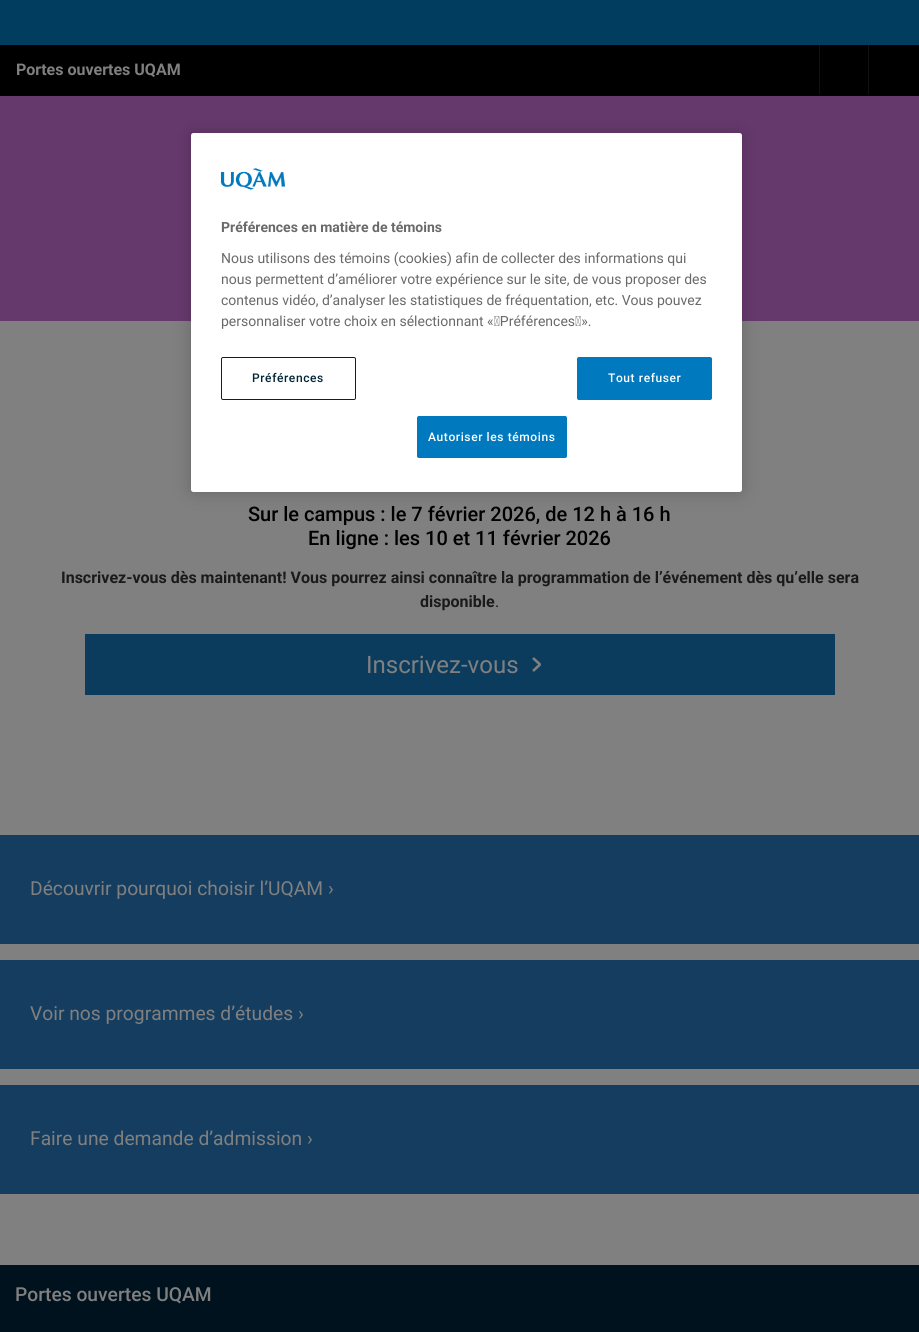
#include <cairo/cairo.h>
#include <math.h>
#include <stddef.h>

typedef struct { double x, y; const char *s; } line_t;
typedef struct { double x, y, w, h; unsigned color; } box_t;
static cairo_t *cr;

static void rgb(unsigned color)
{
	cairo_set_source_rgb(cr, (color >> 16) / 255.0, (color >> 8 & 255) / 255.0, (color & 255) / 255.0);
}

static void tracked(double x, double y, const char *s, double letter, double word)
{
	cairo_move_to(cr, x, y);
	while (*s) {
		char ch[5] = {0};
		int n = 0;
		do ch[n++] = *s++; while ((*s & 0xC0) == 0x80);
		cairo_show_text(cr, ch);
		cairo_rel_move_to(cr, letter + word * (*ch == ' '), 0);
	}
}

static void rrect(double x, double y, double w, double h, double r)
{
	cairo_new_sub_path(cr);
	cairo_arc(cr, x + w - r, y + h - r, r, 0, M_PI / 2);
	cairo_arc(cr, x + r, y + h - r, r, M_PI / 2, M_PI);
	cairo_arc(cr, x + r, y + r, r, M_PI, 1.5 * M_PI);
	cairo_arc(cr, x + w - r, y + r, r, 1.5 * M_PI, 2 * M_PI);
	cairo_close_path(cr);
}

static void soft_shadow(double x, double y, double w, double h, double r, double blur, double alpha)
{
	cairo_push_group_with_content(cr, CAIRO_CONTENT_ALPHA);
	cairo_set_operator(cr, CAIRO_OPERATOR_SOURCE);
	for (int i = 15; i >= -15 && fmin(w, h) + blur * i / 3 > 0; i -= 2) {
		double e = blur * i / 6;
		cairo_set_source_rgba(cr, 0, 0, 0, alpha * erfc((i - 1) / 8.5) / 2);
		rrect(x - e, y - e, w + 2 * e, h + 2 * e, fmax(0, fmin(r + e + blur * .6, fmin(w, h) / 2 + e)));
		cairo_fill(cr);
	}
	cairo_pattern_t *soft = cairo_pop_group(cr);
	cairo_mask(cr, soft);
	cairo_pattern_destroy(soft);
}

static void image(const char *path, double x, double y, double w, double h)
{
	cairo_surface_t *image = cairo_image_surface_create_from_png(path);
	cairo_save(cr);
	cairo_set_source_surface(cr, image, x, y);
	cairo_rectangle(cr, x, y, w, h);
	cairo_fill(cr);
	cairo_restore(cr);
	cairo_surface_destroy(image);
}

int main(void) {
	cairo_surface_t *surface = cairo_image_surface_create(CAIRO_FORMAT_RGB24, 919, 1332);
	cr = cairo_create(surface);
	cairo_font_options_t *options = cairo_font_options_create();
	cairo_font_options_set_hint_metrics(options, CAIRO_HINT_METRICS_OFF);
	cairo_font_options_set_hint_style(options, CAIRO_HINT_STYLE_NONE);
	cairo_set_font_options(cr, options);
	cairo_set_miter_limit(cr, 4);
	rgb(0x808080);
	cairo_paint(cr);
	rgb(0x003d5f);
	cairo_rectangle(cr, 0, 0, 919, 45);
	cairo_fill(cr);
	rgb(0x000000);
	cairo_rectangle(cr, 0, 45, 919, 51);
	cairo_fill(cr);
	rgb(0x121212);
	cairo_new_path(cr);
	cairo_move_to(cr, 869, 45);
	cairo_line_to(cr, 869, 95);
	cairo_line_to(cr, 868, 94);
	cairo_line_to(cr, 868, 46);
	cairo_close_path(cr);
	cairo_move_to(cr, 819, 95);
	cairo_line_to(cr, 819, 45);
	cairo_line_to(cr, 820, 46);
	cairo_line_to(cr, 820, 94);
	cairo_close_path(cr);
	cairo_fill(cr);
	rgb(0x66396d);
	cairo_rectangle(cr, 0, 96, 919, 225);
	cairo_fill(cr);
	rgb(0x0b3c5e);
	cairo_rectangle(cr, 85, 634, 750, 61);
	cairo_fill(cr);
	cairo_new_path(cr);
	cairo_move_to(cr, 533, 658);
	cairo_line_to(cr, 540, 664.5);
	cairo_line_to(cr, 533, 671);
	rgb(0x808080);
	cairo_set_line_width(cr, 2.6);
	cairo_set_line_join(cr, CAIRO_LINE_JOIN_BEVEL);
	cairo_stroke(cr);
	{
		static const box_t items[] = {
			{0, 835, 919, 109, 0x153d5f},
			{0, 960, 919, 109, 0x153d5f},
			{0, 1085, 919, 109, 0x153d5f},
			{0, 1265, 919, 67, 0x00121d},
		};
		for (size_t i = 0; i < sizeof items / sizeof *items; i++) {
			rgb(items[i].color);
			cairo_rectangle(cr, items[i].x, items[i].y, items[i].w, items[i].h);
			cairo_fill(cr);
		}
	}
	rgb(0x000000);
	soft_shadow(191, 133, 551, 359, 2.5, 9, 0.2);
	rgb(0xffffff);
	rrect(191, 133, 551, 359, 2.5);
	cairo_fill(cr);
	image("img/1.png", 220, 168, 65, 22);
	rrect(221.5, 357.5, 134, 42, 1.5);
	rgb(0x002539);
	cairo_set_line_width(cr, 1);
	cairo_set_line_join(cr, CAIRO_LINE_JOIN_MITER);
	cairo_stroke(cr);
	rgb(0x0079be);
	rrect(577.5, 357.5, 134, 42, 1.5);
	cairo_fill_preserve(cr);
	cairo_stroke(cr);
	rrect(417.5, 416.5, 149, 41, 1.5);
	cairo_fill_preserve(cr);
	cairo_stroke(cr);
	cairo_select_font_face(cr, "Roboto", CAIRO_FONT_SLANT_NORMAL, CAIRO_FONT_WEIGHT_BOLD);
	cairo_set_font_size(cr, 16);
	rgb(0x808080);
	cairo_move_to(cr, 16, 75);
	cairo_show_text(cr, "Portes ouvertes UQAM");
	cairo_select_font_face(cr, "Roboto Medium", CAIRO_FONT_SLANT_NORMAL, CAIRO_FONT_WEIGHT_NORMAL);
	cairo_set_font_size(cr, 20);
	rgb(0x000000);
	cairo_move_to(cr, 248, 521);
	cairo_show_text(cr, "Sur le campus : le 7 février 2026, de 12 h à 16 h");
	cairo_move_to(cr, 308, 545);
	cairo_show_text(cr, "En ligne : les 10 et 11 février 2026");
	cairo_select_font_face(cr, "Roboto", CAIRO_FONT_SLANT_NORMAL, CAIRO_FONT_WEIGHT_BOLD);
	cairo_set_font_size(cr, 16);
	rgb(0x1a1a1a);
	cairo_move_to(cr, 61, 583);
	cairo_show_text(cr, "Inscrivez-vous dès maintenant! Vous pourrez ainsi connaître la programmation de l’événement dès qu’elle sera");
	cairo_move_to(cr, 420, 607);
	cairo_show_text(cr, "disponible");
	cairo_select_font_face(cr, "Roboto", CAIRO_FONT_SLANT_NORMAL, CAIRO_FONT_WEIGHT_NORMAL);
	cairo_move_to(cr, 495, 607);
	cairo_show_text(cr, ".");
	cairo_set_font_size(cr, 24);
	rgb(0x808080);
	cairo_move_to(cr, 366, 673);
	cairo_show_text(cr, "Inscrivez-vous");
	cairo_set_font_size(cr, 19.25);
	{
		static const line_t items[] = {
			{30, 895, "Découvrir pourquoi choisir l’UQAM ›"},
			{30, 1020, "Voir nos programmes d’études ›"},
			{30, 1145, "Faire une demande d’admission ›"},
		};
		for (size_t i = 0; i < sizeof items / sizeof *items; i++) {
			cairo_move_to(cr, items[i].x, items[i].y);
			cairo_show_text(cr, items[i].s);
		}
	}
	cairo_select_font_face(cr, "Roboto Medium", CAIRO_FONT_SLANT_NORMAL, CAIRO_FONT_WEIGHT_NORMAL);
	cairo_move_to(cr, 15, 1301);
	cairo_show_text(cr, "Portes ouvertes UQAM");
	cairo_select_font_face(cr, "Roboto", CAIRO_FONT_SLANT_NORMAL, CAIRO_FONT_WEIGHT_BOLD);
	cairo_set_font_size(cr, 14);
	rgb(0x696969);
	cairo_move_to(cr, 221, 232);
	cairo_show_text(cr, "Préférences en matière de témoins");
	cairo_select_font_face(cr, "Roboto", CAIRO_FONT_SLANT_NORMAL, CAIRO_FONT_WEIGHT_NORMAL);
	{
		static const line_t items[] = {
			{221, 263, "Nous utilisons des témoins (cookies) afin de collecter des informations qui"},
			{221, 284, "nous permettent d’améliorer votre expérience sur le site, de vous proposer des"},
			{221, 305, "contenus vidéo, d’analyser les statistiques de fréquentation, etc. Vous pouvez"},
			{221, 326, "personnaliser votre choix en sélectionnant « Préférences »."},
		};
		for (size_t i = 0; i < sizeof items / sizeof *items; i++) {
			cairo_move_to(cr, items[i].x, items[i].y);
			cairo_show_text(cr, items[i].s);
		}
	}
	cairo_select_font_face(cr, "Roboto Medium", CAIRO_FONT_SLANT_NORMAL, CAIRO_FONT_WEIGHT_NORMAL);
	cairo_set_font_size(cr, 12);
	rgb(0x002539);
	tracked(252, 382, "Préférences", 0.6, 0);
	rgb(0xffffff);
	tracked(608, 382, "Tout refuser", 0.6, 0);
	tracked(428, 441, "Autoriser les témoins", 0.6, 0);
	cairo_surface_write_to_png(surface, "page.png");
	cairo_font_options_destroy(options);
	cairo_destroy(cr);
	cairo_surface_destroy(surface);
	return 0;
}
